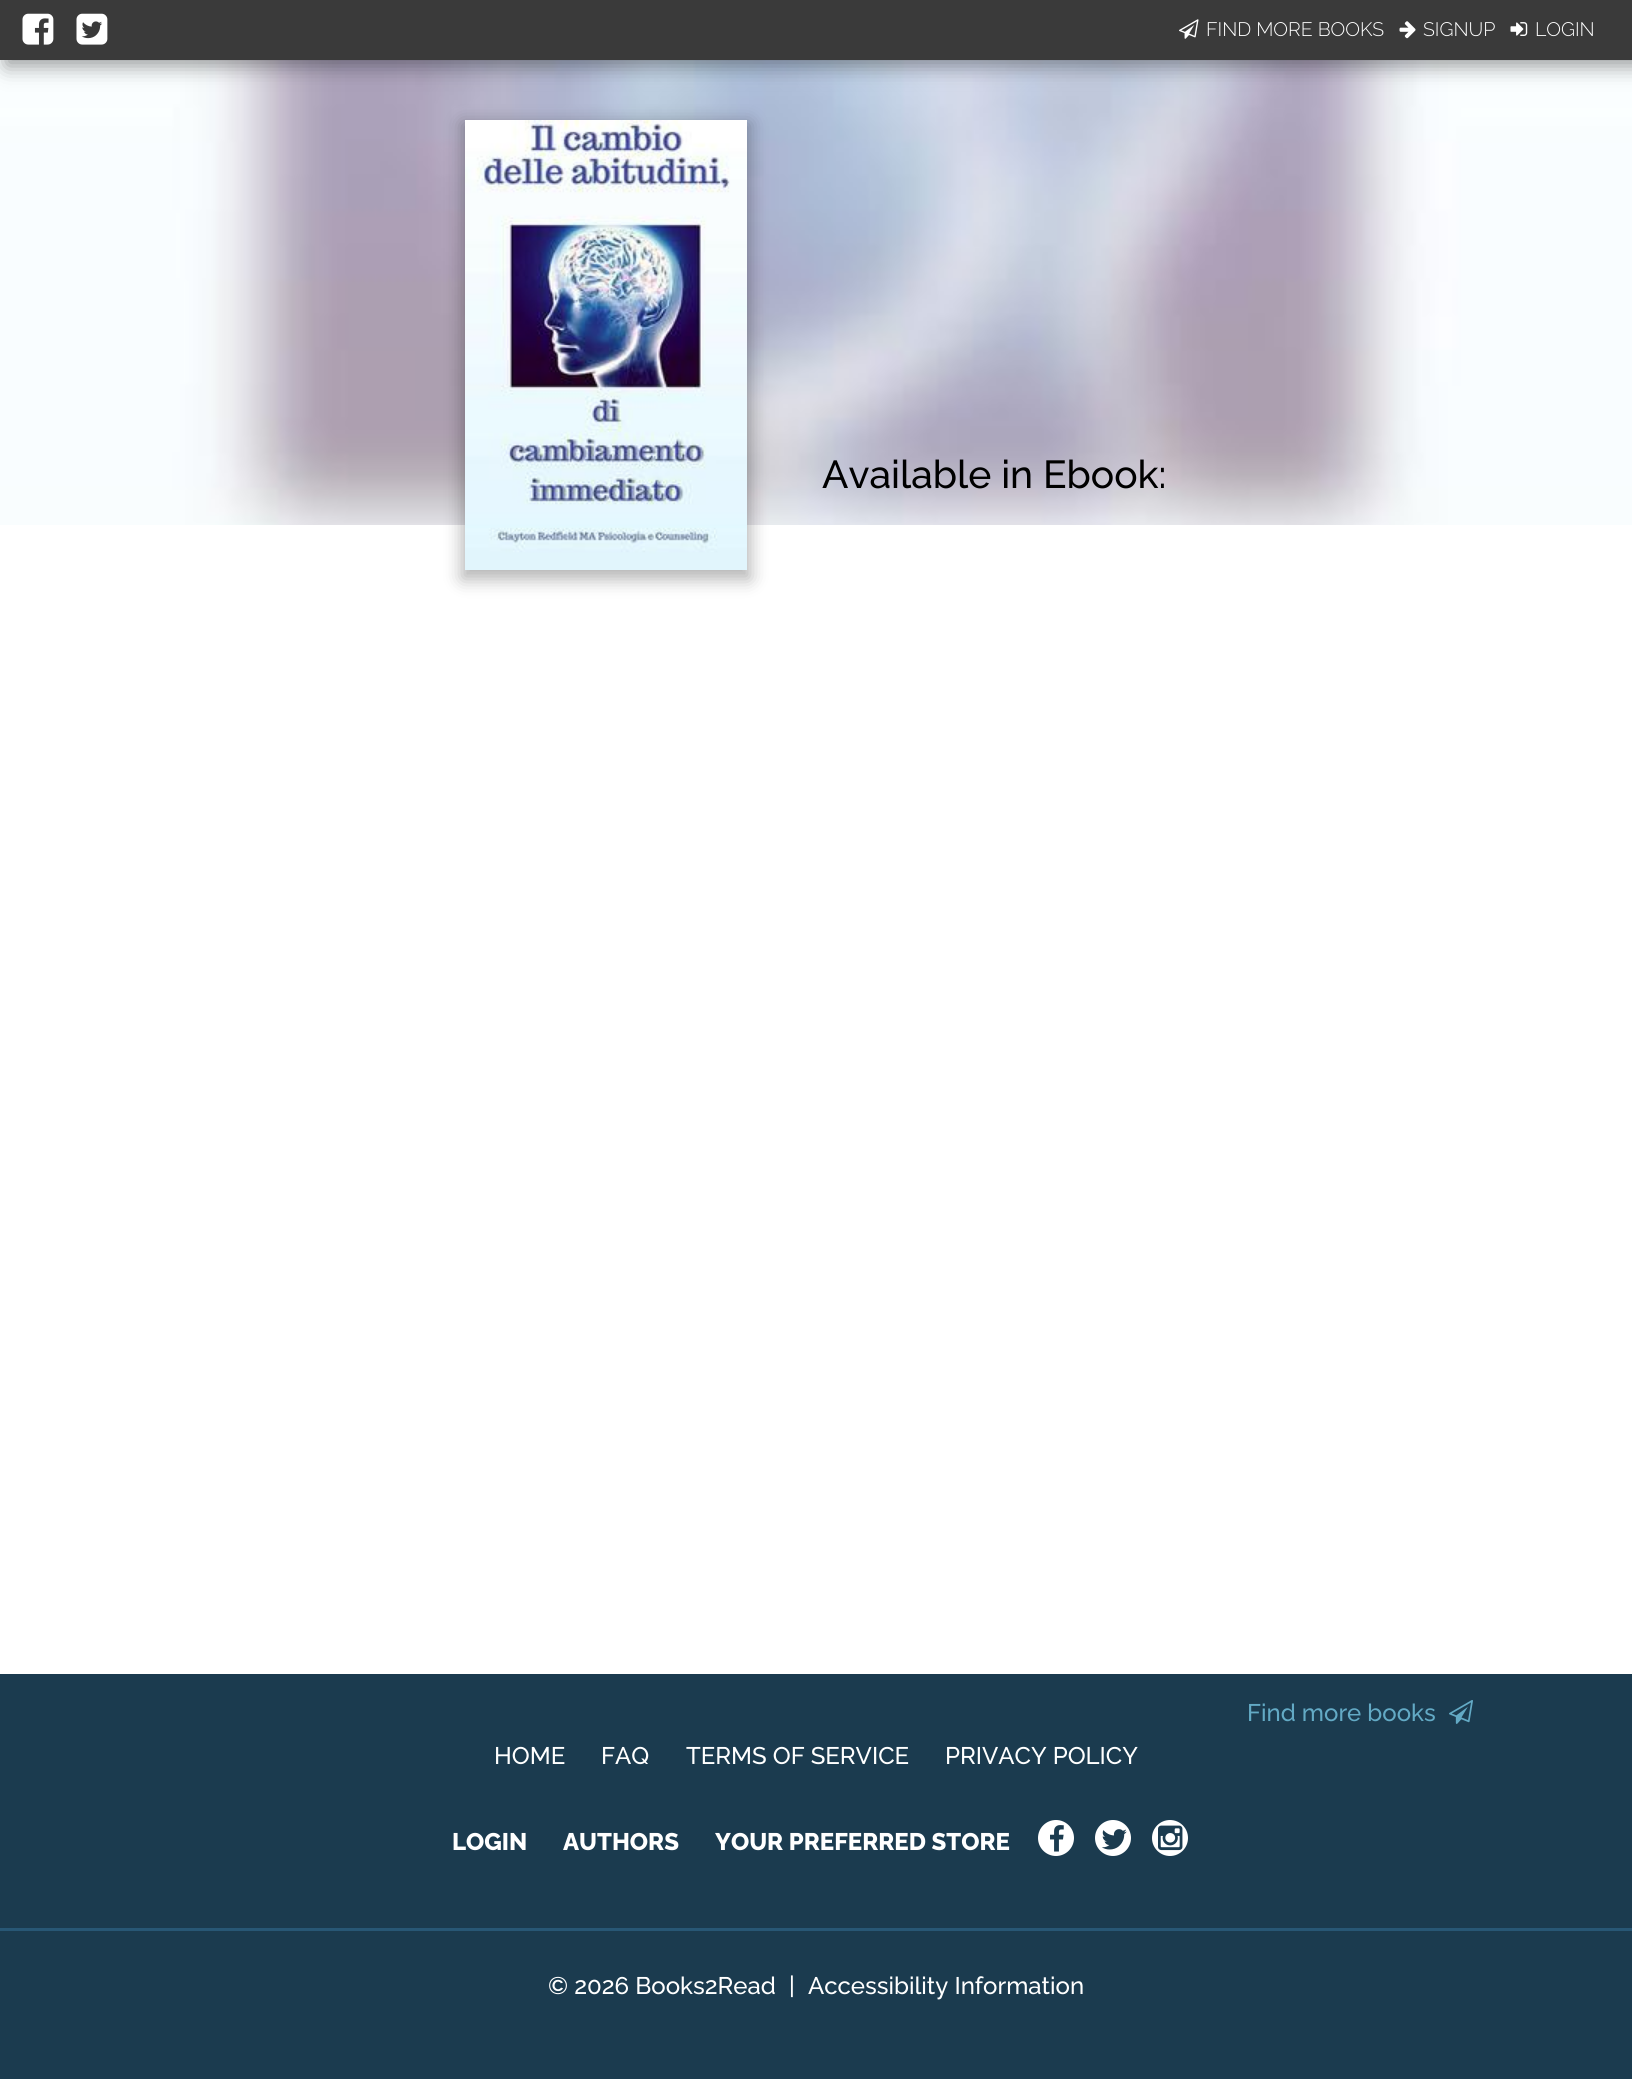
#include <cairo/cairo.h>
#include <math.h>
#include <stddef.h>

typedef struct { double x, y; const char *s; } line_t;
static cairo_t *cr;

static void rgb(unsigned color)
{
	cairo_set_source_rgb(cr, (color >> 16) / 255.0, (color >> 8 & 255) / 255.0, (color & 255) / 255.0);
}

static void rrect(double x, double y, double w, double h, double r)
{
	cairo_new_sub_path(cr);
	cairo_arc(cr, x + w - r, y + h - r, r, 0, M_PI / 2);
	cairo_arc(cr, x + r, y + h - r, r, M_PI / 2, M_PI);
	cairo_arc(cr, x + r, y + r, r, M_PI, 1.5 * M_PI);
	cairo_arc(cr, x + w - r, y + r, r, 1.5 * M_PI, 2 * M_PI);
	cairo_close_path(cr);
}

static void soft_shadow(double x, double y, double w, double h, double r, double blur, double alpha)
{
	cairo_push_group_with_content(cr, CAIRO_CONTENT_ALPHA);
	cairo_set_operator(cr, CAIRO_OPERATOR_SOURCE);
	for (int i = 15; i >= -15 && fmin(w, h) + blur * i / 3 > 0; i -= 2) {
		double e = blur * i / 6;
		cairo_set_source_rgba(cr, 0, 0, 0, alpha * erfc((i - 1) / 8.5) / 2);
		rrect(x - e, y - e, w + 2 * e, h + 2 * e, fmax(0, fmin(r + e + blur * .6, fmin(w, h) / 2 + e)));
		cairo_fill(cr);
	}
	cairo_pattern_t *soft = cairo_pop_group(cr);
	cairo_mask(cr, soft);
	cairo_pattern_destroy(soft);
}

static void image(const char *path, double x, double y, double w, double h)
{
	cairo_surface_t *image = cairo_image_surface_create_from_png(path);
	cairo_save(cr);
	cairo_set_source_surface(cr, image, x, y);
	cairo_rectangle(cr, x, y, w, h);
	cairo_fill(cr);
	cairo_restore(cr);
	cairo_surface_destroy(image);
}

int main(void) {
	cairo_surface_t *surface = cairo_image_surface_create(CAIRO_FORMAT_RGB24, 1632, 2079);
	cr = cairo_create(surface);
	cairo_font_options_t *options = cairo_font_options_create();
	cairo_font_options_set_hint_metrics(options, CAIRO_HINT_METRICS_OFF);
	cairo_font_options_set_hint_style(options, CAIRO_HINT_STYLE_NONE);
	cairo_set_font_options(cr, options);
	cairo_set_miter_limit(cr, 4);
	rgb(0xffffff);
	cairo_paint(cr);
	image("img/1.png", 0, 60, 1632, 465);
	rgb(0x000000);
	soft_shadow(6, 6, 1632, 60, 0, 10.5, 0.4);
	rgb(0x3a3a3a);
	cairo_rectangle(cr, 0, 0, 1632, 60);
	cairo_fill(cr);
	image("img/2.png", 22, 13, 32, 32);
	image("img/3.png", 76, 13, 32, 32);
	image("img/4.png", 1179, 19, 20, 20);
	image("img/5.png", 1399, 21, 17, 18);
	image("img/6.png", 1510, 22, 18, 14);
	rgb(0x000000);
	soft_shadow(462, 123, 288, 456, 0, 9, 0.3);
	image("img/7.png", 465, 120, 282, 450);
	rgb(0x1b3b4f);
	cairo_rectangle(cr, 0, 1674, 1632, 405);
	cairo_fill(cr);
	image("img/8.png", 1449, 1700, 24, 24);
	rgb(0xffffff);
	cairo_arc(cr, 1056, 1838, 18, 0, 2 * M_PI);
	cairo_fill(cr);
	image("img/9.png", 1050, 1825, 14, 27);
	cairo_arc(cr, 1113, 1838, 18, 0, 2 * M_PI);
	cairo_fill(cr);
	image("img/10.png", 1101, 1829, 26, 21);
	cairo_arc(cr, 1170, 1838, 18, 0, 2 * M_PI);
	cairo_fill(cr);
	image("img/11.png", 1158, 1825, 25, 26);
	rgb(0x285775);
	cairo_rectangle(cr, 0, 1928, 1632, 3);
	cairo_fill(cr);
	cairo_select_font_face(cr, "Raleway Light", CAIRO_FONT_SLANT_NORMAL, CAIRO_FONT_WEIGHT_NORMAL);
	cairo_set_font_size(cr, 19.5);
	rgb(0xffffff);
	{
		static const line_t items[] = {
			{1206, 36, "FIND MORE BOOKS"},
			{1423, 36, "SIGNUP"},
			{1535, 36, "LOGIN"},
		};
		for (size_t i = 0; i < sizeof items / sizeof *items; i++) {
			cairo_move_to(cr, items[i].x, items[i].y);
			cairo_show_text(cr, items[i].s);
		}
	}
	cairo_select_font_face(cr, "Raleway Medium", CAIRO_FONT_SLANT_NORMAL, CAIRO_FONT_WEIGHT_NORMAL);
	cairo_set_font_size(cr, 39);
	rgb(0x000000);
	cairo_move_to(cr, 822, 488);
	cairo_show_text(cr, "Available in Ebook:");
	cairo_set_font_size(cr, 24);
	rgb(0x63aac5);
	cairo_move_to(cr, 1247, 1721);
	cairo_show_text(cr, "Find more books");
	rgb(0xffffff);
	{
		static const line_t items[] = {
			{494, 1764, "HOME"},
			{601, 1764, "FAQ"},
			{686, 1764, "TERMS OF SERVICE"},
			{945, 1764, "PRIVACY POLICY"},
		};
		for (size_t i = 0; i < sizeof items / sizeof *items; i++) {
			cairo_move_to(cr, items[i].x, items[i].y);
			cairo_show_text(cr, items[i].s);
		}
	}
	cairo_select_font_face(cr, "Raleway ExtraBold", CAIRO_FONT_SLANT_NORMAL, CAIRO_FONT_WEIGHT_NORMAL);
	{
		static const line_t items[] = {
			{452, 1850, "LOGIN"},
			{563, 1850, "AUTHORS"},
			{715, 1850, "YOUR PREFERRED STORE"},
		};
		for (size_t i = 0; i < sizeof items / sizeof *items; i++) {
			cairo_move_to(cr, items[i].x, items[i].y);
			cairo_show_text(cr, items[i].s);
		}
	}
	cairo_select_font_face(cr, "Raleway Medium", CAIRO_FONT_SLANT_NORMAL, CAIRO_FONT_WEIGHT_NORMAL);
	{
		static const line_t items[] = {
			{548, 1994, "© 2026 Books2Read"},
			{789, 1994, "|"},
			{808, 1994, "Accessibility Information"},
		};
		for (size_t i = 0; i < sizeof items / sizeof *items; i++) {
			cairo_move_to(cr, items[i].x, items[i].y);
			cairo_show_text(cr, items[i].s);
		}
	}
	cairo_surface_write_to_png(surface, "page.png");
	cairo_font_options_destroy(options);
	cairo_destroy(cr);
	cairo_surface_destroy(surface);
	return 0;
}
